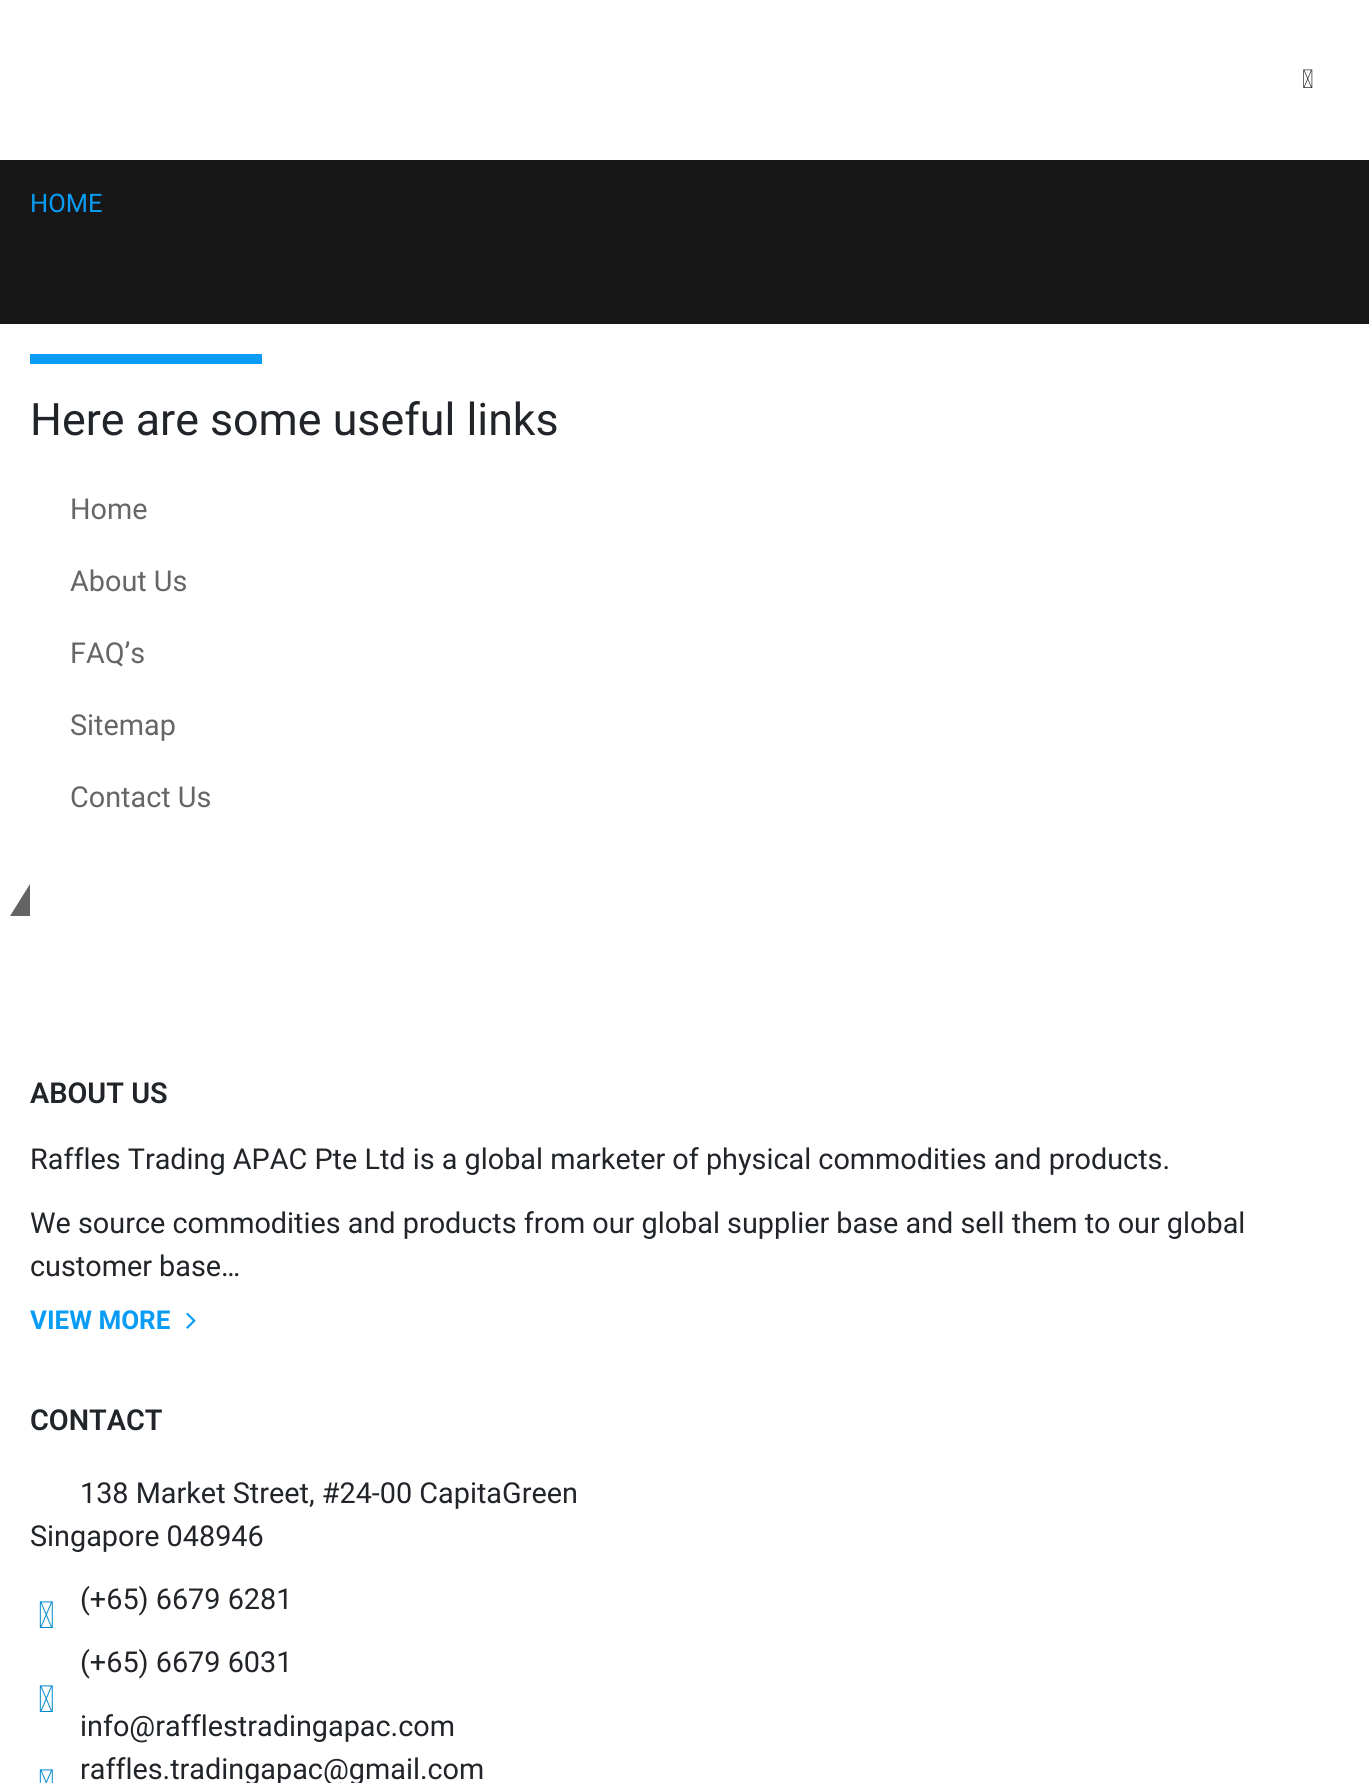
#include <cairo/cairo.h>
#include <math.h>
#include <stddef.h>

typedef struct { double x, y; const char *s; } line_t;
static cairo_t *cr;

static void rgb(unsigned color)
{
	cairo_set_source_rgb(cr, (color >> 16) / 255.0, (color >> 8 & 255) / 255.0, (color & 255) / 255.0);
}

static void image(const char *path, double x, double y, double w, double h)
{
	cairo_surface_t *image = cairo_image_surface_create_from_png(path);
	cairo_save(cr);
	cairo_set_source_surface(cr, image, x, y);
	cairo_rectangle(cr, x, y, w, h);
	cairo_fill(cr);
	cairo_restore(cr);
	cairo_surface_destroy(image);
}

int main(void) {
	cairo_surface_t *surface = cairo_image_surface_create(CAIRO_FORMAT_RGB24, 1369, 1783);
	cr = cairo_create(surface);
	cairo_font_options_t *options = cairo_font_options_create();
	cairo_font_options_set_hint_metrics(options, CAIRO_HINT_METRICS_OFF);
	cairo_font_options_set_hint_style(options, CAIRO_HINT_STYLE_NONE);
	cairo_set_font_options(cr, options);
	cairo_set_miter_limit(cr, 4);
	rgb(0xffffff);
	cairo_paint(cr);
	image("img/1.png", 1303, 69, 10, 19);
	rgb(0x171717);
	cairo_rectangle(cr, 0, 160, 1369, 164);
	cairo_fill(cr);
	rgb(0x099cf4);
	cairo_rectangle(cr, 30, 354, 232, 10);
	cairo_fill(cr);
	rgb(0x646464);
	cairo_new_path(cr);
	cairo_move_to(cr, 30, 884);
	cairo_line_to(cr, 30, 916);
	cairo_line_to(cr, 10, 916);
	cairo_close_path(cr);
	cairo_fill(cr);
	image("img/2.png", 186, 1312, 10, 17);
	image("img/3.png", 39, 1601, 14, 27);
	image("img/3.png", 39, 1685, 14, 27);
	image("img/4.png", 39, 1769, 14, 14);
	cairo_select_font_face(cr, "Roboto", CAIRO_FONT_SLANT_NORMAL, CAIRO_FONT_WEIGHT_NORMAL);
	cairo_set_font_size(cr, 25.5);
	rgb(0x099cf4);
	cairo_move_to(cr, 30, 212);
	cairo_show_text(cr, "HOME");
	cairo_set_font_size(cr, 44.75);
	rgb(0x212529);
	cairo_move_to(cr, 30, 435);
	cairo_show_text(cr, "Here are some useful links");
	cairo_set_font_size(cr, 28.8);
	rgb(0x666666);
	{
		static const line_t items[] = {
			{70, 519, "Home"},
			{70, 591, "About Us"},
			{70, 663, "FAQ’s"},
			{70, 735, "Sitemap"},
			{70, 807, "Contact Us"},
		};
		for (size_t i = 0; i < sizeof items / sizeof *items; i++) {
			cairo_move_to(cr, items[i].x, items[i].y);
			cairo_show_text(cr, items[i].s);
		}
	}
	cairo_select_font_face(cr, "Roboto SemiBold", CAIRO_FONT_SLANT_NORMAL, CAIRO_FONT_WEIGHT_NORMAL);
	rgb(0x212529);
	cairo_move_to(cr, 30, 1103);
	cairo_show_text(cr, "ABOUT US");
	cairo_select_font_face(cr, "Roboto", CAIRO_FONT_SLANT_NORMAL, CAIRO_FONT_WEIGHT_NORMAL);
	{
		static const line_t items[] = {
			{30, 1169, "Raffles Trading APAC Pte Ltd is a global marketer of physical commodities and products."},
			{30, 1233, "We source commodities and products from our global supplier base and sell them to our global"},
			{30, 1276, "customer base…"},
		};
		for (size_t i = 0; i < sizeof items / sizeof *items; i++) {
			cairo_move_to(cr, items[i].x, items[i].y);
			cairo_show_text(cr, items[i].s);
		}
	}
	cairo_select_font_face(cr, "Roboto", CAIRO_FONT_SLANT_NORMAL, CAIRO_FONT_WEIGHT_BOLD);
	cairo_set_font_size(cr, 26);
	rgb(0x099cf4);
	cairo_move_to(cr, 30, 1329);
	cairo_show_text(cr, "VIEW MORE");
	cairo_select_font_face(cr, "Roboto SemiBold", CAIRO_FONT_SLANT_NORMAL, CAIRO_FONT_WEIGHT_NORMAL);
	cairo_set_font_size(cr, 28.8);
	rgb(0x212529);
	cairo_move_to(cr, 30, 1430);
	cairo_show_text(cr, "CONTACT");
	cairo_select_font_face(cr, "Roboto", CAIRO_FONT_SLANT_NORMAL, CAIRO_FONT_WEIGHT_NORMAL);
	{
		static const line_t items[] = {
			{80, 1503, "138 Market Street, #24-00 CapitaGreen"},
			{30, 1546, "Singapore 048946"},
			{80, 1609, "(+65) 6679 6281"},
			{80, 1672, "(+65) 6679 6031"},
			{80, 1736, "info@rafflestradingapac.com"},
			{80, 1779, "raffles.tradingapac@gmail.com"},
		};
		for (size_t i = 0; i < sizeof items / sizeof *items; i++) {
			cairo_move_to(cr, items[i].x, items[i].y);
			cairo_show_text(cr, items[i].s);
		}
	}
	cairo_surface_write_to_png(surface, "page.png");
	cairo_font_options_destroy(options);
	cairo_destroy(cr);
	cairo_surface_destroy(surface);
	return 0;
}
